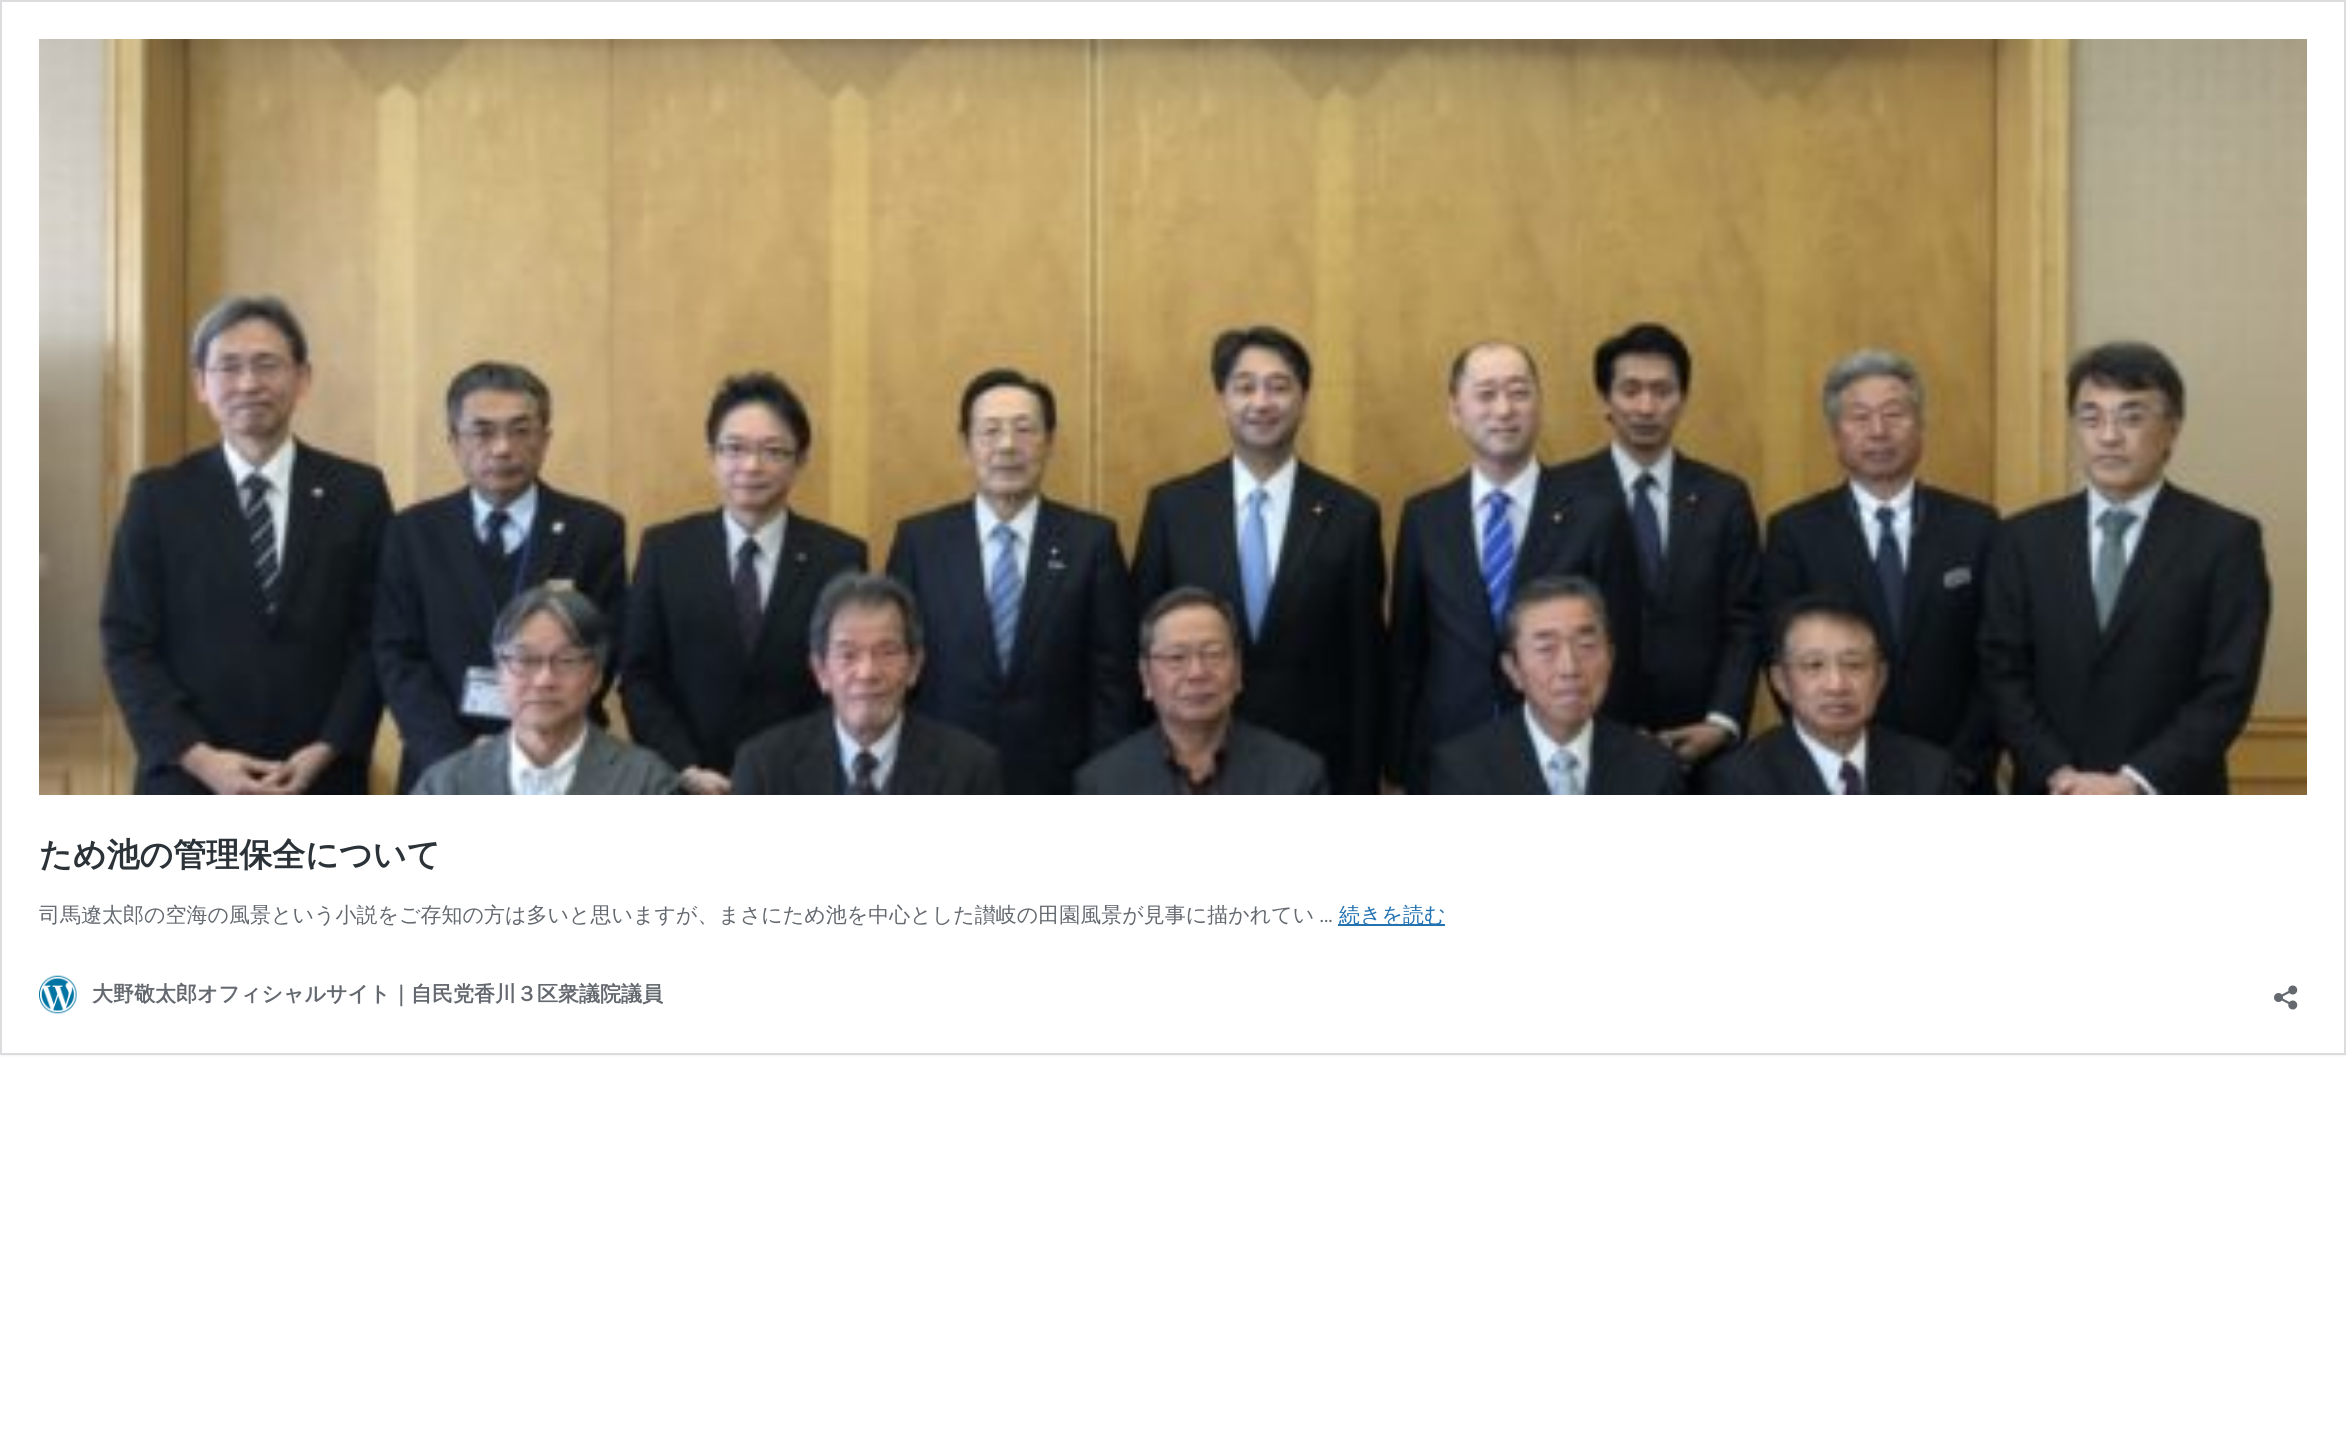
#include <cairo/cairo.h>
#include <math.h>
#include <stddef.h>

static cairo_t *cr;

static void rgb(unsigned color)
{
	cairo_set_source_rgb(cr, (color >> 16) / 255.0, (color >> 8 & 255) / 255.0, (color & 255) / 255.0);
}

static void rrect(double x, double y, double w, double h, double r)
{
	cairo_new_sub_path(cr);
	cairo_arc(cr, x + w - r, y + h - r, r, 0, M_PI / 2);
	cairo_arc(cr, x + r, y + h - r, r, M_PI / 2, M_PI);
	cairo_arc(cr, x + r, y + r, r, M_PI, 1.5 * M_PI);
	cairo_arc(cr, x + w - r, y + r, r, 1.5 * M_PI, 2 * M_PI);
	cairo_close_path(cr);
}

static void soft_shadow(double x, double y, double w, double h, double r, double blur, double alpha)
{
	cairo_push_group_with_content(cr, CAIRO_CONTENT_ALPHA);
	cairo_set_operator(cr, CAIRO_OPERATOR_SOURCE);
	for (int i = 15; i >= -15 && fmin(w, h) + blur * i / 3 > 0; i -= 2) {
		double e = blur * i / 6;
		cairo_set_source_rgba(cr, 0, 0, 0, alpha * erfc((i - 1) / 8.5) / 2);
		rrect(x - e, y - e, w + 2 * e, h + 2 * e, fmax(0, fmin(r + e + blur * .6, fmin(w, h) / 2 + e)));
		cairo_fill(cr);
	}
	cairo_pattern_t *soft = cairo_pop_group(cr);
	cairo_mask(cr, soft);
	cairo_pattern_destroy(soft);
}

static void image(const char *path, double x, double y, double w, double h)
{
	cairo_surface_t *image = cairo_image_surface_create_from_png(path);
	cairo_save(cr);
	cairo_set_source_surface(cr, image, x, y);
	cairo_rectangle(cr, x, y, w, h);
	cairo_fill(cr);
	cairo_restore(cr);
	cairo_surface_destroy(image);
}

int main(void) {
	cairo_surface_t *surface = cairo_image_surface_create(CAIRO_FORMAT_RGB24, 2346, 1442);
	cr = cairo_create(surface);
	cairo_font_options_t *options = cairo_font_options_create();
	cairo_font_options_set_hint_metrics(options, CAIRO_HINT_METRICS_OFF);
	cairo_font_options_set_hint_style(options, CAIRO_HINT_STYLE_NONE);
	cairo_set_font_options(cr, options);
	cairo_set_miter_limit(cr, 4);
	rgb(0xffffff);
	cairo_paint(cr);
	rgb(0x000000);
	soft_shadow(0, 2, 2346, 1054, 0, 1, 0.05);
	rgb(0xffffff);
	cairo_rectangle(cr, 1, 1, 2344, 1053);
	cairo_fill_preserve(cr);
	rgb(0xdcdcde);
	cairo_stroke(cr);
	image("img/1.png", 39, 39, 2268, 756);
	rgb(0x2271b1);
	cairo_rectangle(cr, 1338, 924, 107, 2);
	cairo_fill(cr);
	image("img/2.png", 39, 975, 38, 39);
	image("img/3.png", 2274, 985, 24, 25);
	cairo_select_font_face(cr, "WenQuanYi Zen Hei", CAIRO_FONT_SLANT_NORMAL, CAIRO_FONT_WEIGHT_BOLD);
	cairo_set_font_size(cr, 33);
	rgb(0x2c3338);
	cairo_move_to(cr, 39, 866);
	cairo_show_text(cr, "ため池の管理保全について");
	cairo_select_font_face(cr, "WenQuanYi Zen Hei Medium", CAIRO_FONT_SLANT_NORMAL, CAIRO_FONT_WEIGHT_NORMAL);
	cairo_set_font_size(cr, 21);
	rgb(0x646970);
	cairo_move_to(cr, 39, 922);
	cairo_show_text(cr, "司馬遼太郎の空海の風景という小説をご存知の方は多いと思いますが、まさにため池を中心とした讃岐の田園風景が見事に描かれてい");
	cairo_select_font_face(cr, "Roboto", CAIRO_FONT_SLANT_NORMAL, CAIRO_FONT_WEIGHT_NORMAL);
	cairo_move_to(cr, 1319, 922);
	cairo_show_text(cr, "…");
	cairo_select_font_face(cr, "WenQuanYi Zen Hei Medium", CAIRO_FONT_SLANT_NORMAL, CAIRO_FONT_WEIGHT_NORMAL);
	rgb(0x2271b1);
	cairo_move_to(cr, 1339, 922);
	cairo_show_text(cr, "続きを読む");
	cairo_select_font_face(cr, "WenQuanYi Zen Hei", CAIRO_FONT_SLANT_NORMAL, CAIRO_FONT_WEIGHT_BOLD);
	rgb(0x646970);
	cairo_move_to(cr, 92, 1001);
	cairo_show_text(cr, "大野敬太郎オフィシャルサイト｜自民党香川３区衆議院議員");
	cairo_surface_write_to_png(surface, "page.png");
	cairo_font_options_destroy(options);
	cairo_destroy(cr);
	cairo_surface_destroy(surface);
	return 0;
}
